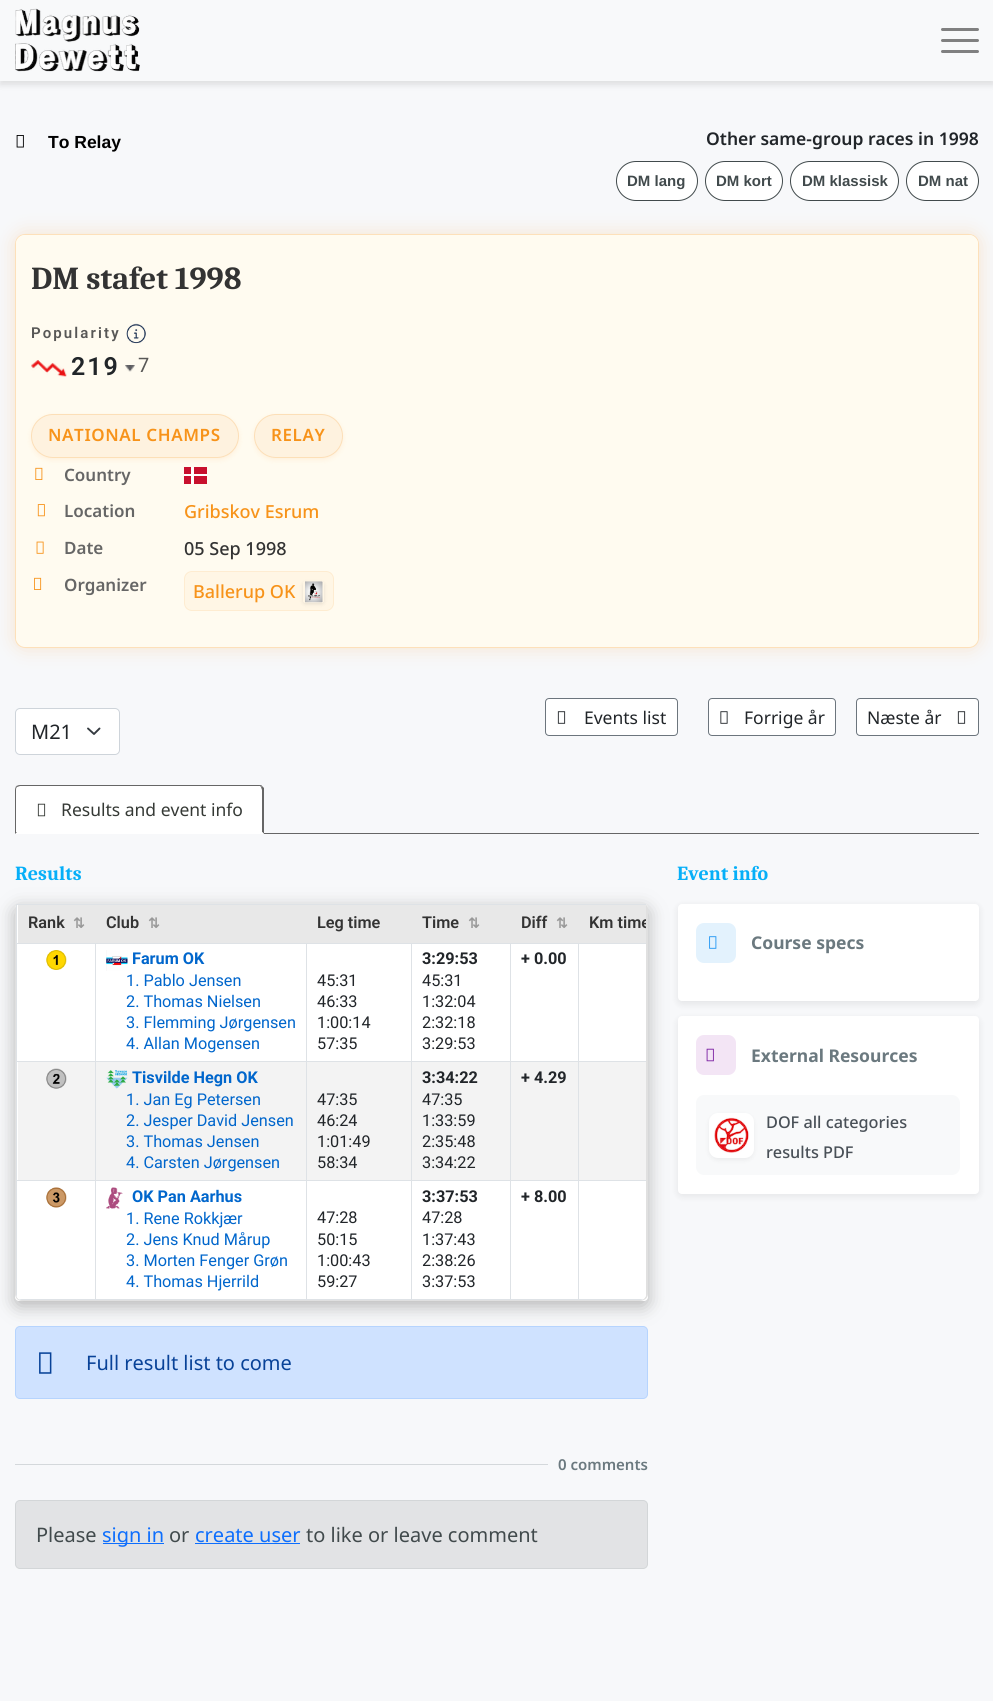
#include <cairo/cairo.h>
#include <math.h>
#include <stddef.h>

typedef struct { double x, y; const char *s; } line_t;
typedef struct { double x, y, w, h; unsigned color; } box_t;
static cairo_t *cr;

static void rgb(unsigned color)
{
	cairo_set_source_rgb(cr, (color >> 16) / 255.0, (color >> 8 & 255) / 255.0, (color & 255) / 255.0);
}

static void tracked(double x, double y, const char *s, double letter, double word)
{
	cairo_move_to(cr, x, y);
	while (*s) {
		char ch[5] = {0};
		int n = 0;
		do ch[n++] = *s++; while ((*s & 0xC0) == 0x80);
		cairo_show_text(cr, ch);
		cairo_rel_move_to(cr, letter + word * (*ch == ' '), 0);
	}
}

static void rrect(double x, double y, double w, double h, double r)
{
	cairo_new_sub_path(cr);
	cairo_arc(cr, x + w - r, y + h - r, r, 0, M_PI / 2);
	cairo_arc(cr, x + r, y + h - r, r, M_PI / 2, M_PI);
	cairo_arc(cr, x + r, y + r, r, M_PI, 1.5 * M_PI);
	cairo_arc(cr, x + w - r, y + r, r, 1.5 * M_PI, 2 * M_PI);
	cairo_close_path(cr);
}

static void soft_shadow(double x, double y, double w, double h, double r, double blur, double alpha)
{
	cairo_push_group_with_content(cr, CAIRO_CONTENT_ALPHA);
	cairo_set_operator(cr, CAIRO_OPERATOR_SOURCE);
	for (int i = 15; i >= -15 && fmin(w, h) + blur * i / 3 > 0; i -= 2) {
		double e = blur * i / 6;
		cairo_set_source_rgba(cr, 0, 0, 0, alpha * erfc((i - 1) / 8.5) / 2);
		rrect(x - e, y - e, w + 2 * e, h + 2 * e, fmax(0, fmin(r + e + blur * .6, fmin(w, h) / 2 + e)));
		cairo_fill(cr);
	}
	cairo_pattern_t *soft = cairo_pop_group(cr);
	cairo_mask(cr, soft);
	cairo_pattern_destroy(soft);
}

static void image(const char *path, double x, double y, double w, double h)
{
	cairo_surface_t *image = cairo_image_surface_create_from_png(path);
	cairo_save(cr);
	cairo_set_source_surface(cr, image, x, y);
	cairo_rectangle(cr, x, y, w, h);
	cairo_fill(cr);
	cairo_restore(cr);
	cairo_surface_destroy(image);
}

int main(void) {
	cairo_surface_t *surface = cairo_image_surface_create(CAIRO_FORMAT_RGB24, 993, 1701);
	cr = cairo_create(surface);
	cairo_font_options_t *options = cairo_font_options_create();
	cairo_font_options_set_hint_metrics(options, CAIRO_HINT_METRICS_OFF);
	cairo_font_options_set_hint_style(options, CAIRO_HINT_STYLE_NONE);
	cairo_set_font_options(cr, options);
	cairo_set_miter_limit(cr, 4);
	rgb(0xf7f8fa);
	cairo_paint(cr);
	rgb(0x000000);
	soft_shadow(0, 4, 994, 81, 0, 3, 0.1);
	rgb(0xf8f9fa);
	cairo_rectangle(cr, 0, 0, 993, 81);
	cairo_fill(cr);
	image("img/1.png", 15, 8, 125, 64);
	rgb(0x808080);
	rrect(941, 28, 38, 3, 1.5);
	cairo_fill(cr);
	rrect(941, 39, 38, 3, 1.5);
	cairo_fill(cr);
	rrect(941, 50, 38, 3, 1.5);
	cairo_fill(cr);
	image("img/2.png", 16, 135, 8, 13);
	rgb(0xffffff);
	rrect(616.5, 161.5, 81, 39, 19.5);
	cairo_fill_preserve(cr);
	rgb(0x414a4c);
	cairo_set_line_width(cr, 1);
	cairo_stroke(cr);
	rgb(0xffffff);
	rrect(705.5, 161.5, 77, 39, 19.5);
	cairo_fill_preserve(cr);
	rgb(0x414a4c);
	cairo_stroke(cr);
	rgb(0xffffff);
	rrect(790.5, 161.5, 108, 39, 19.5);
	cairo_fill_preserve(cr);
	rgb(0x414a4c);
	cairo_stroke(cr);
	rgb(0xffffff);
	rrect(906.5, 161.5, 72, 39, 19.5);
	cairo_fill_preserve(cr);
	rgb(0x414a4c);
	cairo_stroke(cr);
	rgb(0xf7931a);
	soft_shadow(15, 234, 964, 414, 10, 9.5, 0.2);
	rgb(0xfffbf0);
	rrect(15, 234, 964, 414, 10);
	cairo_fill(cr);
	rrect(15.5, 234.5, 963, 413, 9.5);
	cairo_set_source_rgba(cr, 0.969, 0.576, 0.102, 0.25);
	cairo_stroke(cr);
	rgb(0xfffbf0);
	rrect(16, 235, 962, 411, 9);
	cairo_fill(cr);
	image("img/3.png", 126, 323, 20, 21);
	image("img/4.png", 31, 360, 36, 17);
	image("img/5.png", 125, 365, 10, 7);
	cairo_save(cr);
	cairo_set_fill_rule(cr, CAIRO_FILL_RULE_EVEN_ODD);
	cairo_new_path(cr);
	cairo_move_to(cr, 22, 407);
	cairo_line_to(cr, 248, 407);
	cairo_line_to(cr, 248, 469);
	cairo_line_to(cr, 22, 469);
	cairo_close_path(cr);
	cairo_move_to(cr, 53, 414);
	cairo_line_to(cr, 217, 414);
	cairo_curve_to(cr, 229, 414, 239, 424, 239, 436);
	cairo_curve_to(cr, 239, 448, 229, 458, 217, 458);
	cairo_line_to(cr, 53, 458);
	cairo_curve_to(cr, 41, 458, 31, 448, 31, 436);
	cairo_curve_to(cr, 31, 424, 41, 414, 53, 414);
	cairo_close_path(cr);
	cairo_clip(cr);
	rgb(0xf7931a);
	soft_shadow(31, 416, 208, 44, 22, 2.5, 0.1);
	cairo_restore(cr);
	cairo_set_source_rgba(cr, 0.969, 0.576, 0.102, 0.08);
	rrect(31, 414, 208, 44, 22);
	cairo_fill(cr);
	rrect(31.5, 414.5, 207, 43, 21.5);
	cairo_set_source_rgba(cr, 0.969, 0.576, 0.102, 0.2);
	cairo_stroke(cr);
	cairo_save(cr);
	cairo_set_fill_rule(cr, CAIRO_FILL_RULE_EVEN_ODD);
	cairo_new_path(cr);
	cairo_move_to(cr, 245, 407);
	cairo_line_to(cr, 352, 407);
	cairo_line_to(cr, 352, 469);
	cairo_line_to(cr, 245, 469);
	cairo_close_path(cr);
	cairo_move_to(cr, 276, 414);
	cairo_line_to(cr, 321, 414);
	cairo_curve_to(cr, 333, 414, 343, 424, 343, 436);
	cairo_curve_to(cr, 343, 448, 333, 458, 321, 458);
	cairo_line_to(cr, 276, 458);
	cairo_curve_to(cr, 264, 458, 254, 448, 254, 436);
	cairo_curve_to(cr, 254, 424, 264, 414, 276, 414);
	cairo_close_path(cr);
	cairo_clip(cr);
	rgb(0xf7931a);
	soft_shadow(254, 416, 89, 44, 22, 2.5, 0.1);
	cairo_restore(cr);
	cairo_set_source_rgba(cr, 0.969, 0.576, 0.102, 0.08);
	rrect(254, 414, 89, 44, 22);
	cairo_fill(cr);
	rrect(254.5, 414.5, 88, 43, 21.5);
	cairo_set_source_rgba(cr, 0.969, 0.576, 0.102, 0.2);
	cairo_stroke(cr);
	image("img/6.png", 35, 467, 8, 13);
	{
		static const box_t items[] = {
			{184, 467, 23, 17, 0xc8102e},
			{191, 467, 3, 17, 0xffffff},
			{184, 474, 23, 2, 0xffffff},
		};
		for (size_t i = 0; i < sizeof items / sizeof *items; i++) {
			rgb(items[i].color);
			cairo_rectangle(cr, items[i].x, items[i].y, items[i].w, items[i].h);
			cairo_fill(cr);
		}
	}
	image("img/7.png", 37, 504, 8, 13);
	image("img/8.png", 36, 541, 8, 13);
	image("img/9.png", 34, 577, 8, 13);
	rgb(0xfff6e5);
	rrect(184, 571, 150, 40, 8);
	cairo_fill(cr);
	rrect(184.5, 571.5, 149, 39, 7.5);
	cairo_set_source_rgba(cr, 0.969, 0.576, 0.102, 0.1);
	cairo_stroke(cr);
	cairo_save(cr);
	cairo_set_fill_rule(cr, CAIRO_FILL_RULE_EVEN_ODD);
	cairo_new_path(cr);
	cairo_move_to(cr, 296, 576);
	cairo_line_to(cr, 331, 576);
	cairo_line_to(cr, 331, 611);
	cairo_line_to(cr, 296, 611);
	cairo_close_path(cr);
	cairo_move_to(cr, 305.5, 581);
	cairo_line_to(cr, 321.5, 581);
	cairo_curve_to(cr, 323, 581, 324, 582, 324, 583.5);
	cairo_line_to(cr, 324, 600.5);
	cairo_curve_to(cr, 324, 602, 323, 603, 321.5, 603);
	cairo_line_to(cr, 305.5, 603);
	cairo_curve_to(cr, 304, 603, 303, 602, 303, 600.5);
	cairo_line_to(cr, 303, 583.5);
	cairo_curve_to(cr, 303, 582, 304, 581, 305.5, 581);
	cairo_close_path(cr);
	cairo_clip(cr);
	rgb(0x000000);
	soft_shadow(303, 583, 21, 21, 2.5, 2, 0.1);
	cairo_restore(cr);
	image("img/10.png", 305, 581, 18, 22);
	rgb(0xffffff);
	rrect(545.5, 698.5, 132, 37, 3.5);
	cairo_fill_preserve(cr);
	rgb(0x6c757d);
	cairo_stroke(cr);
	image("img/11.png", 557, 711, 9, 13);
	rgb(0xffffff);
	rrect(708.5, 698.5, 127, 37, 3.5);
	cairo_fill_preserve(cr);
	rgb(0x6c757d);
	cairo_stroke(cr);
	image("img/12.png", 720, 711, 8, 13);
	rgb(0xffffff);
	rrect(856.5, 698.5, 122, 37, 3.5);
	cairo_fill_preserve(cr);
	rgb(0x6c757d);
	cairo_stroke(cr);
	image("img/11.png", 957, 711, 9, 13);
	rgb(0xffffff);
	rrect(15, 708, 105, 47, 5);
	cairo_fill(cr);
	cairo_new_path(cr);
	cairo_move_to(cr, 88, 728.5);
	cairo_line_to(cr, 94, 734);
	cairo_line_to(cr, 99.5, 728.5);
	rgb(0x343a40);
	cairo_set_line_width(cr, 1.9);
	cairo_set_line_cap(cr, CAIRO_LINE_CAP_ROUND);
	cairo_set_line_join(cr, CAIRO_LINE_JOIN_ROUND);
	cairo_stroke(cr);
	rrect(15.5, 708.5, 104, 46, 4.5);
	rgb(0xced4da);
	cairo_set_line_width(cr, 1);
	cairo_set_line_cap(cr, CAIRO_LINE_CAP_BUTT);
	cairo_set_line_join(cr, CAIRO_LINE_JOIN_MITER);
	cairo_stroke(cr);
	rgb(0x666666);
	cairo_rectangle(cr, 264, 833, 715, 1);
	cairo_fill(cr);
	rgb(0xffffff);
	cairo_new_path(cr);
	cairo_move_to(cr, 20, 785);
	cairo_line_to(cr, 259, 785);
	cairo_curve_to(cr, 262, 785, 264, 787, 264, 790);
	cairo_line_to(cr, 264, 834);
	cairo_line_to(cr, 15, 834);
	cairo_line_to(cr, 15, 790);
	cairo_curve_to(cr, 15, 787, 17, 785, 20, 785);
	cairo_close_path(cr);
	cairo_fill(cr);
	rgb(0x666666);
	cairo_new_path(cr);
	cairo_move_to(cr, 20, 785);
	cairo_curve_to(cr, 18, 785, 17, 786, 16, 786);
	cairo_line_to(cr, 17, 787);
	cairo_line_to(cr, 20, 786);
	cairo_line_to(cr, 260, 786);
	cairo_line_to(cr, 261, 787);
	cairo_line_to(cr, 262, 786);
	cairo_curve_to(cr, 262, 785, 260, 785, 259, 785);
	cairo_close_path(cr);
	cairo_fill(cr);
	cairo_new_path(cr);
	cairo_move_to(cr, 262, 786);
	cairo_line_to(cr, 264, 788);
	cairo_line_to(cr, 264, 834);
	cairo_line_to(cr, 262, 832);
	cairo_line_to(cr, 262, 790);
	cairo_line_to(cr, 261, 787);
	cairo_close_path(cr);
	cairo_fill(cr);
	rgb(0xffffff);
	cairo_new_path(cr);
	cairo_move_to(cr, 264, 834);
	cairo_line_to(cr, 262, 832);
	cairo_line_to(cr, 17, 832);
	cairo_line_to(cr, 15, 834);
	cairo_close_path(cr);
	cairo_fill(cr);
	rgb(0x666666);
	cairo_new_path(cr);
	cairo_move_to(cr, 15, 834);
	cairo_line_to(cr, 17, 832);
	cairo_line_to(cr, 16, 832);
	cairo_line_to(cr, 16, 790);
	cairo_curve_to(cr, 16, 789, 16, 788, 17, 787);
	cairo_line_to(cr, 16, 786);
	cairo_curve_to(cr, 16, 787, 15, 788, 15, 790);
	cairo_close_path(cr);
	cairo_fill(cr);
	image("img/13.png", 37, 803, 9, 14);
	rgb(0xb5b5b5);
	soft_shadow(15, 909, 633, 397, 4, 9, 1);
	rgb(0xffffff);
	rrect(15, 904, 633, 397, 4);
	cairo_fill(cr);
	rgb(0xe0e0e0);
	cairo_new_path(cr);
	cairo_move_to(cr, 15, 908);
	cairo_line_to(cr, 15, 1294);
	cairo_curve_to(cr, 15, 1298, 18, 1301, 22, 1301);
	cairo_line_to(cr, 640, 1301);
	cairo_curve_to(cr, 644, 1301, 648, 1298, 648, 1294);
	cairo_line_to(cr, 648, 908);
	cairo_curve_to(cr, 648, 907, 647, 905, 646, 905);
	cairo_line_to(cr, 646, 1294);
	cairo_curve_to(cr, 646, 1297, 643, 1300, 640, 1300);
	cairo_line_to(cr, 22, 1300);
	cairo_curve_to(cr, 19, 1300, 16, 1297, 16, 1294);
	cairo_line_to(cr, 16, 905);
	cairo_close_path(cr);
	cairo_fill(cr);
	cairo_save(cr);
	rrect(15, 904, 633, 397, 4);
	cairo_clip(cr);
	cairo_new_path(cr);
	cairo_move_to(cr, 16, 904);
	cairo_line_to(cr, 646, 904);
	cairo_line_to(cr, 646, 1294);
	cairo_curve_to(cr, 646, 1297.5, 643.5, 1300, 640, 1300);
	cairo_line_to(cr, 22, 1300);
	cairo_curve_to(cr, 18.5, 1300, 16, 1297.5, 16, 1294);
	cairo_close_path(cr);
	cairo_clip(cr);
	rgb(0xffffff);
	cairo_new_path(cr);
	cairo_move_to(cr, 16, 904);
	cairo_line_to(cr, 644, 904);
	cairo_curve_to(cr, 646, 904, 648, 906, 648, 908);
	cairo_line_to(cr, 648, 1300);
	cairo_line_to(cr, 16, 1300);
	cairo_close_path(cr);
	cairo_fill(cr);
	cairo_restore(cr);
	{
		static const box_t items[] = {
			{18, 905, 628, 38, 0xe8e8e8},
			{16, 904, 630, 1, 0xdee2e6},
			{578, 943, 68, 1, 0xdee2e6},
			{18, 1062, 628, 118, 0xf3f3f3},
			{578, 1061, 68, 1, 0xdee2e6},
			{578, 1180, 68, 1, 0xdee2e6},
		};
		for (size_t i = 0; i < sizeof items / sizeof *items; i++) {
			rgb(items[i].color);
			cairo_rectangle(cr, items[i].x, items[i].y, items[i].w, items[i].h);
			cairo_fill(cr);
		}
	}
	cairo_save(cr);
	cairo_new_path(cr);
	cairo_move_to(cr, 16, 904);
	cairo_line_to(cr, 646, 904);
	cairo_line_to(cr, 646, 1294);
	cairo_curve_to(cr, 646, 1297.5, 643.5, 1300, 640, 1300);
	cairo_line_to(cr, 22, 1300);
	cairo_curve_to(cr, 18.5, 1300, 16, 1297.5, 16, 1294);
	cairo_close_path(cr);
	cairo_clip(cr);
	rgb(0xffffff);
	cairo_new_path(cr);
	cairo_move_to(cr, 18, 1181);
	cairo_line_to(cr, 646, 1181);
	cairo_line_to(cr, 646, 1294);
	cairo_curve_to(cr, 646, 1297.5, 643.5, 1300, 640, 1300);
	cairo_line_to(cr, 18, 1300);
	cairo_close_path(cr);
	cairo_fill(cr);
	rgb(0xdee2e6);
	cairo_rectangle(cr, 578, 1299, 68, 1);
	cairo_fill(cr);
	cairo_restore(cr);
	{
		static const box_t items[] = {
			{578, 1180, 1, 120, 0xdee2e6},
			{510, 1180, 69, 1, 0xdee2e6},
			{578, 1061, 1, 120, 0xdee2e6},
			{510, 1061, 69, 1, 0xdee2e6},
			{578, 943, 1, 120, 0xdee2e6},
			{510, 943, 69, 1, 0xdee2e6},
			{510, 1299, 69, 1, 0xdee2e6},
			{510, 1180, 1, 120, 0xdee2e6},
			{411, 1180, 100, 1, 0xdee2e6},
			{510, 1061, 1, 120, 0xdee2e6},
			{411, 1061, 100, 1, 0xdee2e6},
			{510, 943, 1, 120, 0xdee2e6},
			{411, 943, 100, 1, 0xdee2e6},
			{411, 1299, 100, 1, 0xdee2e6},
			{411, 1180, 1, 120, 0xdee2e6},
			{306, 1180, 107, 1, 0xdee2e6},
			{411, 1061, 1, 120, 0xdee2e6},
			{306, 1061, 107, 1, 0xdee2e6},
			{411, 943, 1, 120, 0xdee2e6},
			{306, 943, 107, 1, 0xdee2e6},
			{306, 1299, 107, 1, 0xdee2e6},
			{306, 1180, 1, 120, 0xdee2e6},
			{95, 1180, 213, 1, 0xdee2e6},
			{306, 1061, 1, 120, 0xdee2e6},
			{95, 1061, 213, 1, 0xdee2e6},
			{306, 943, 1, 120, 0xdee2e6},
			{95, 943, 213, 1, 0xdee2e6},
			{95, 1299, 213, 1, 0xdee2e6},
			{95, 1180, 1, 120, 0xdee2e6},
			{16, 1180, 80, 1, 0xdee2e6},
			{95, 1061, 1, 120, 0xdee2e6},
			{16, 1061, 80, 1, 0xdee2e6},
			{95, 943, 1, 120, 0xdee2e6},
			{16, 943, 80, 1, 0xdee2e6},
		};
		for (size_t i = 0; i < sizeof items / sizeof *items; i++) {
			rgb(items[i].color);
			cairo_rectangle(cr, items[i].x, items[i].y, items[i].w, items[i].h);
			cairo_fill(cr);
		}
	}
	cairo_save(cr);
	cairo_new_path(cr);
	cairo_move_to(cr, 16, 904);
	cairo_line_to(cr, 646, 904);
	cairo_line_to(cr, 646, 1294);
	cairo_curve_to(cr, 646, 1297.5, 643.5, 1300, 640, 1300);
	cairo_line_to(cr, 22, 1300);
	cairo_curve_to(cr, 18.5, 1300, 16, 1297.5, 16, 1294);
	cairo_close_path(cr);
	cairo_clip(cr);
	cairo_rectangle(cr, 16, 1299, 80, 1);
	cairo_fill(cr);
	cairo_rectangle(cr, 16, 1180, 1, 120);
	cairo_fill(cr);
	cairo_restore(cr);
	{
		static const box_t items[] = {
			{16, 1061, 1, 120, 0xdee2e6},
			{16, 943, 1, 120, 0xdee2e6},
			{16, 904, 1, 40, 0xdee2e6},
		};
		for (size_t i = 0; i < sizeof items / sizeof *items; i++) {
			rgb(items[i].color);
			cairo_rectangle(cr, items[i].x, items[i].y, items[i].w, items[i].h);
			cairo_fill(cr);
		}
	}
	image("img/14.png", 46, 950, 21, 20);
	image("img/15.png", 106, 950, 22, 21);
	image("img/16.png", 46, 1068, 21, 21);
	image("img/17.png", 106, 1070, 22, 19);
	image("img/18.png", 46, 1187, 21, 21);
	image("img/19.png", 106, 1187, 17, 22);
	rgb(0xcfe2ff);
	rrect(15.5, 1326.5, 632, 72, 4.5);
	cairo_fill_preserve(cr);
	rgb(0xb6d4fe);
	cairo_stroke(cr);
	image("img/20.png", 39, 1352, 13, 22);
	rgb(0xd4d8db);
	cairo_rectangle(cr, 15, 1464, 533, 1);
	cairo_fill(cr);
	rgb(0xe2e3e5);
	rrect(15.5, 1500.5, 632, 68, 4.5);
	cairo_fill_preserve(cr);
	rgb(0xd3d6d8);
	cairo_stroke(cr);
	rgb(0x0d6efd);
	cairo_rectangle(cr, 103, 1543, 61, 1);
	cairo_fill(cr);
	cairo_rectangle(cr, 195, 1543, 105, 1);
	cairo_fill(cr);
	rgb(0x000000);
	soft_shadow(678, 906, 301, 98, 4, 4, 0.08);
	rgb(0xffffff);
	rrect(678, 904, 301, 97, 4);
	cairo_fill(cr);
	rgb(0xe3f2fd);
	rrect(696, 923, 40, 40, 8);
	cairo_fill(cr);
	image("img/21.png", 709, 936, 8, 13);
	rgb(0x000000);
	soft_shadow(678, 1019, 301, 177, 4, 4, 0.08);
	rgb(0xffffff);
	rrect(678, 1016, 301, 178, 4);
	cairo_fill(cr);
	rgb(0xf3e5f5);
	rrect(696, 1035, 40, 40, 8);
	cairo_fill(cr);
	image("img/22.png", 706, 1048, 8, 14);
	rgb(0xf8f9fa);
	rrect(696, 1095, 264, 80, 8);
	cairo_fill(cr);
	rgb(0x000000);
	soft_shadow(709, 1115, 45, 45, 9, 2.5, 0.06);
	rgb(0xffffff);
	rrect(709, 1113, 45, 45, 9);
	cairo_fill(cr);
	image("img/23.png", 714, 1117, 35, 36);
	cairo_select_font_face(cr, "Liberation Sans", CAIRO_FONT_SLANT_NORMAL, CAIRO_FONT_WEIGHT_BOLD);
	cairo_set_font_size(cr, 17.5);
	rgb(0x000000);
	cairo_move_to(cr, 48, 148);
	cairo_show_text(cr, "To Relay");
	cairo_select_font_face(cr, "Noto Sans SemiBold", CAIRO_FONT_SLANT_NORMAL, CAIRO_FONT_WEIGHT_NORMAL);
	rgb(0x212529);
	cairo_move_to(cr, 706, 145);
	cairo_show_text(cr, "Other same-group races in 1998");
	cairo_select_font_face(cr, "Liberation Sans", CAIRO_FONT_SLANT_NORMAL, CAIRO_FONT_WEIGHT_BOLD);
	cairo_set_font_size(cr, 15);
	rgb(0x414a4c);
	{
		static const line_t items[] = {
			{627, 186, "DM lang"},
			{716, 186, "DM kort"},
			{802, 186, "DM klassisk"},
			{918, 186, "DM nat"},
		};
		for (size_t i = 0; i < sizeof items / sizeof *items; i++) {
			cairo_move_to(cr, items[i].x, items[i].y);
			cairo_show_text(cr, items[i].s);
		}
	}
	cairo_select_font_face(cr, "Caladea", CAIRO_FONT_SLANT_NORMAL, CAIRO_FONT_WEIGHT_BOLD);
	cairo_set_font_size(cr, 32);
	rgb(0x333333);
	cairo_move_to(cr, 31, 289);
	cairo_show_text(cr, "DM stafet 1998");
	cairo_select_font_face(cr, "Roboto SemiBold", CAIRO_FONT_SLANT_NORMAL, CAIRO_FONT_WEIGHT_NORMAL);
	cairo_set_font_size(cr, 15);
	rgb(0x585756);
	tracked(31, 338, "Popularity", 2.1, 0);
	cairo_set_font_size(cr, 25);
	rgb(0x212529);
	tracked(71, 375, "219", 2, 0);
	cairo_select_font_face(cr, "Roboto", CAIRO_FONT_SLANT_NORMAL, CAIRO_FONT_WEIGHT_NORMAL);
	cairo_set_font_size(cr, 20);
	rgb(0x585756);
	cairo_move_to(cr, 138, 372);
	cairo_show_text(cr, "7");
	cairo_select_font_face(cr, "Noto Sans SemiBold", CAIRO_FONT_SLANT_NORMAL, CAIRO_FONT_WEIGHT_NORMAL);
	cairo_set_font_size(cr, 17);
	rgb(0xf7931a);
	tracked(48, 441, "NATIONAL CHAMPS", 0.6, 0);
	tracked(271, 441, "RELAY", 0.6, 0);
	rgb(0x666666);
	cairo_move_to(cr, 64, 481);
	cairo_show_text(cr, "Country");
	cairo_move_to(cr, 64, 517);
	cairo_show_text(cr, "Location");
	cairo_select_font_face(cr, "Noto Sans Medium", CAIRO_FONT_SLANT_NORMAL, CAIRO_FONT_WEIGHT_NORMAL);
	cairo_set_font_size(cr, 18);
	rgb(0xf7931a);
	cairo_move_to(cr, 184, 518);
	cairo_show_text(cr, "Gribskov Esrum");
	cairo_select_font_face(cr, "Noto Sans SemiBold", CAIRO_FONT_SLANT_NORMAL, CAIRO_FONT_WEIGHT_NORMAL);
	cairo_set_font_size(cr, 17);
	rgb(0x666666);
	cairo_move_to(cr, 64, 554);
	cairo_show_text(cr, "Date");
	cairo_select_font_face(cr, "Noto Sans Medium", CAIRO_FONT_SLANT_NORMAL, CAIRO_FONT_WEIGHT_NORMAL);
	cairo_set_font_size(cr, 18);
	rgb(0x333333);
	cairo_move_to(cr, 184, 555);
	cairo_show_text(cr, "05 Sep 1998");
	cairo_select_font_face(cr, "Noto Sans SemiBold", CAIRO_FONT_SLANT_NORMAL, CAIRO_FONT_WEIGHT_NORMAL);
	cairo_set_font_size(cr, 17);
	rgb(0x666666);
	cairo_move_to(cr, 64, 591);
	cairo_show_text(cr, "Organizer");
	cairo_select_font_face(cr, "Noto Sans Medium", CAIRO_FONT_SLANT_NORMAL, CAIRO_FONT_WEIGHT_NORMAL);
	cairo_set_font_size(cr, 18);
	rgb(0xf7931a);
	cairo_move_to(cr, 193, 598);
	cairo_show_text(cr, "Ballerup OK");
	cairo_select_font_face(cr, "Noto Sans", CAIRO_FONT_SLANT_NORMAL, CAIRO_FONT_WEIGHT_NORMAL);
	cairo_set_font_size(cr, 17.5);
	rgb(0x212529);
	{
		static const line_t items[] = {
			{584, 724, "Events list"},
			{744, 724, "Forrige år"},
			{867, 724, "Næste år"},
		};
		for (size_t i = 0; i < sizeof items / sizeof *items; i++) {
			cairo_move_to(cr, items[i].x, items[i].y);
			cairo_show_text(cr, items[i].s);
		}
	}
	cairo_set_font_size(cr, 20);
	cairo_move_to(cr, 31, 739);
	cairo_show_text(cr, "M21");
	cairo_set_font_size(cr, 17.5);
	rgb(0x353935);
	cairo_move_to(cr, 61, 816);
	cairo_show_text(cr, "Results and event info");
	cairo_select_font_face(cr, "Caladea", CAIRO_FONT_SLANT_NORMAL, CAIRO_FONT_WEIGHT_BOLD);
	cairo_set_font_size(cr, 20);
	rgb(0x06aff8);
	cairo_move_to(cr, 15, 880);
	cairo_show_text(cr, "Results");
	cairo_select_font_face(cr, "Roboto SemiBold", CAIRO_FONT_SLANT_NORMAL, CAIRO_FONT_WEIGHT_NORMAL);
	cairo_set_font_size(cr, 16.25);
	rgb(0x333333);
	cairo_move_to(cr, 28, 928);
	cairo_show_text(cr, "Rank");
	cairo_select_font_face(cr, "DejaVu Sans", CAIRO_FONT_SLANT_NORMAL, CAIRO_FONT_WEIGHT_BOLD);
	cairo_set_font_size(cr, 14);
	rgb(0x999999);
	cairo_move_to(cr, 73, 928);
	cairo_show_text(cr, "⇅");
	cairo_select_font_face(cr, "Roboto SemiBold", CAIRO_FONT_SLANT_NORMAL, CAIRO_FONT_WEIGHT_NORMAL);
	cairo_set_font_size(cr, 16.25);
	rgb(0x333333);
	cairo_move_to(cr, 106, 928);
	cairo_show_text(cr, "Club");
	cairo_select_font_face(cr, "DejaVu Sans", CAIRO_FONT_SLANT_NORMAL, CAIRO_FONT_WEIGHT_BOLD);
	cairo_set_font_size(cr, 14);
	rgb(0x999999);
	cairo_move_to(cr, 148, 928);
	cairo_show_text(cr, "⇅");
	cairo_select_font_face(cr, "Roboto SemiBold", CAIRO_FONT_SLANT_NORMAL, CAIRO_FONT_WEIGHT_NORMAL);
	cairo_set_font_size(cr, 16.25);
	rgb(0x333333);
	cairo_move_to(cr, 317, 928);
	cairo_show_text(cr, "Leg time");
	cairo_move_to(cr, 422, 928);
	cairo_show_text(cr, "Time");
	cairo_select_font_face(cr, "DejaVu Sans", CAIRO_FONT_SLANT_NORMAL, CAIRO_FONT_WEIGHT_BOLD);
	cairo_set_font_size(cr, 14);
	rgb(0x999999);
	cairo_move_to(cr, 468, 928);
	cairo_show_text(cr, "⇅");
	cairo_select_font_face(cr, "Roboto SemiBold", CAIRO_FONT_SLANT_NORMAL, CAIRO_FONT_WEIGHT_NORMAL);
	cairo_set_font_size(cr, 16.25);
	rgb(0x333333);
	cairo_move_to(cr, 521, 928);
	cairo_show_text(cr, "Diff");
	cairo_select_font_face(cr, "DejaVu Sans", CAIRO_FONT_SLANT_NORMAL, CAIRO_FONT_WEIGHT_BOLD);
	cairo_set_font_size(cr, 14);
	rgb(0x999999);
	cairo_move_to(cr, 556, 928);
	cairo_show_text(cr, "⇅");
	cairo_save(cr);
	cairo_new_path(cr);
	cairo_move_to(cr, 16, 904);
	cairo_line_to(cr, 646, 904);
	cairo_line_to(cr, 646, 1294);
	cairo_curve_to(cr, 646, 1297.5, 643.5, 1300, 640, 1300);
	cairo_line_to(cr, 22, 1300);
	cairo_curve_to(cr, 18.5, 1300, 16, 1297.5, 16, 1294);
	cairo_close_path(cr);
	cairo_clip(cr);
	cairo_select_font_face(cr, "Roboto SemiBold", CAIRO_FONT_SLANT_NORMAL, CAIRO_FONT_WEIGHT_NORMAL);
	cairo_set_font_size(cr, 16.25);
	rgb(0x333333);
	cairo_move_to(cr, 589, 928);
	cairo_show_text(cr, "Km time");
	cairo_restore(cr);
	cairo_select_font_face(cr, "Roboto", CAIRO_FONT_SLANT_NORMAL, CAIRO_FONT_WEIGHT_BOLD);
	cairo_set_font_size(cr, 16.25);
	rgb(0x0066cc);
	cairo_move_to(cr, 132, 964);
	cairo_show_text(cr, "Farum OK");
	cairo_select_font_face(cr, "Roboto", CAIRO_FONT_SLANT_NORMAL, CAIRO_FONT_WEIGHT_NORMAL);
	{
		static const line_t items[] = {
			{126, 986, "1. Pablo Jensen"},
			{126, 1007, "2. Thomas Nielsen"},
			{126, 1028, "3. Flemming Jørgensen"},
			{126, 1049, "4. Allan Mogensen"},
		};
		for (size_t i = 0; i < sizeof items / sizeof *items; i++) {
			cairo_move_to(cr, items[i].x, items[i].y);
			cairo_show_text(cr, items[i].s);
		}
	}
	cairo_select_font_face(cr, "Roboto", CAIRO_FONT_SLANT_NORMAL, CAIRO_FONT_WEIGHT_BOLD);
	rgb(0x212529);
	cairo_move_to(cr, 422, 964);
	cairo_show_text(cr, "3:29:53");
	cairo_select_font_face(cr, "Roboto", CAIRO_FONT_SLANT_NORMAL, CAIRO_FONT_WEIGHT_NORMAL);
	{
		static const line_t items[] = {
			{422, 986, "45:31"},
			{422, 1007, "1:32:04"},
			{422, 1028, "2:32:18"},
			{422, 1049, "3:29:53"},
		};
		for (size_t i = 0; i < sizeof items / sizeof *items; i++) {
			cairo_move_to(cr, items[i].x, items[i].y);
			cairo_show_text(cr, items[i].s);
		}
	}
	cairo_select_font_face(cr, "Roboto", CAIRO_FONT_SLANT_NORMAL, CAIRO_FONT_WEIGHT_BOLD);
	cairo_move_to(cr, 521, 964);
	cairo_show_text(cr, "+ 0.00");
	cairo_select_font_face(cr, "Roboto", CAIRO_FONT_SLANT_NORMAL, CAIRO_FONT_WEIGHT_NORMAL);
	{
		static const line_t items[] = {
			{317, 986, "45:31"},
			{317, 1007, "46:33"},
			{317, 1028, "1:00:14"},
			{317, 1049, "57:35"},
		};
		for (size_t i = 0; i < sizeof items / sizeof *items; i++) {
			cairo_move_to(cr, items[i].x, items[i].y);
			cairo_show_text(cr, items[i].s);
		}
	}
	cairo_select_font_face(cr, "Roboto", CAIRO_FONT_SLANT_NORMAL, CAIRO_FONT_WEIGHT_BOLD);
	rgb(0x0066cc);
	cairo_move_to(cr, 132, 1083);
	cairo_show_text(cr, "Tisvilde Hegn OK");
	cairo_select_font_face(cr, "Roboto", CAIRO_FONT_SLANT_NORMAL, CAIRO_FONT_WEIGHT_NORMAL);
	{
		static const line_t items[] = {
			{126, 1105, "1. Jan Eg Petersen"},
			{126, 1126, "2. Jesper David Jensen"},
			{126, 1147, "3. Thomas Jensen"},
			{126, 1168, "4. Carsten Jørgensen"},
		};
		for (size_t i = 0; i < sizeof items / sizeof *items; i++) {
			cairo_move_to(cr, items[i].x, items[i].y);
			cairo_show_text(cr, items[i].s);
		}
	}
	cairo_select_font_face(cr, "Roboto", CAIRO_FONT_SLANT_NORMAL, CAIRO_FONT_WEIGHT_BOLD);
	rgb(0x212529);
	cairo_move_to(cr, 422, 1083);
	cairo_show_text(cr, "3:34:22");
	cairo_select_font_face(cr, "Roboto", CAIRO_FONT_SLANT_NORMAL, CAIRO_FONT_WEIGHT_NORMAL);
	{
		static const line_t items[] = {
			{422, 1105, "47:35"},
			{422, 1126, "1:33:59"},
			{422, 1147, "2:35:48"},
			{422, 1168, "3:34:22"},
		};
		for (size_t i = 0; i < sizeof items / sizeof *items; i++) {
			cairo_move_to(cr, items[i].x, items[i].y);
			cairo_show_text(cr, items[i].s);
		}
	}
	cairo_select_font_face(cr, "Roboto", CAIRO_FONT_SLANT_NORMAL, CAIRO_FONT_WEIGHT_BOLD);
	cairo_move_to(cr, 521, 1083);
	cairo_show_text(cr, "+ 4.29");
	cairo_select_font_face(cr, "Roboto", CAIRO_FONT_SLANT_NORMAL, CAIRO_FONT_WEIGHT_NORMAL);
	{
		static const line_t items[] = {
			{317, 1105, "47:35"},
			{317, 1126, "46:24"},
			{317, 1147, "1:01:49"},
			{317, 1168, "58:34"},
		};
		for (size_t i = 0; i < sizeof items / sizeof *items; i++) {
			cairo_move_to(cr, items[i].x, items[i].y);
			cairo_show_text(cr, items[i].s);
		}
	}
	cairo_select_font_face(cr, "Roboto", CAIRO_FONT_SLANT_NORMAL, CAIRO_FONT_WEIGHT_BOLD);
	rgb(0x0066cc);
	cairo_move_to(cr, 132, 1202);
	cairo_show_text(cr, "OK Pan Aarhus");
	cairo_select_font_face(cr, "Roboto", CAIRO_FONT_SLANT_NORMAL, CAIRO_FONT_WEIGHT_NORMAL);
	{
		static const line_t items[] = {
			{126, 1224, "1. Rene Rokkjær"},
			{126, 1245, "2. Jens Knud Mårup"},
			{126, 1266, "3. Morten Fenger Grøn"},
			{126, 1287, "4. Thomas Hjerrild"},
		};
		for (size_t i = 0; i < sizeof items / sizeof *items; i++) {
			cairo_move_to(cr, items[i].x, items[i].y);
			cairo_show_text(cr, items[i].s);
		}
	}
	cairo_select_font_face(cr, "Roboto", CAIRO_FONT_SLANT_NORMAL, CAIRO_FONT_WEIGHT_BOLD);
	rgb(0x212529);
	cairo_move_to(cr, 422, 1202);
	cairo_show_text(cr, "3:37:53");
	cairo_select_font_face(cr, "Roboto", CAIRO_FONT_SLANT_NORMAL, CAIRO_FONT_WEIGHT_NORMAL);
	{
		static const line_t items[] = {
			{422, 1223, "47:28"},
			{422, 1245, "1:37:43"},
			{422, 1266, "2:38:26"},
			{422, 1287, "3:37:53"},
		};
		for (size_t i = 0; i < sizeof items / sizeof *items; i++) {
			cairo_move_to(cr, items[i].x, items[i].y);
			cairo_show_text(cr, items[i].s);
		}
	}
	cairo_select_font_face(cr, "Roboto", CAIRO_FONT_SLANT_NORMAL, CAIRO_FONT_WEIGHT_BOLD);
	cairo_move_to(cr, 521, 1202);
	cairo_show_text(cr, "+ 8.00");
	cairo_select_font_face(cr, "Roboto", CAIRO_FONT_SLANT_NORMAL, CAIRO_FONT_WEIGHT_NORMAL);
	{
		static const line_t items[] = {
			{317, 1223, "47:28"},
			{317, 1245, "50:15"},
			{317, 1266, "1:00:43"},
			{317, 1287, "59:27"},
		};
		for (size_t i = 0; i < sizeof items / sizeof *items; i++) {
			cairo_move_to(cr, items[i].x, items[i].y);
			cairo_show_text(cr, items[i].s);
		}
	}
	cairo_select_font_face(cr, "Noto Sans", CAIRO_FONT_SLANT_NORMAL, CAIRO_FONT_WEIGHT_NORMAL);
	cairo_set_font_size(cr, 20);
	rgb(0x084298);
	cairo_move_to(cr, 86, 1370);
	cairo_show_text(cr, "Full result list to come");
	cairo_select_font_face(cr, "Noto Sans SemiBold", CAIRO_FONT_SLANT_NORMAL, CAIRO_FONT_WEIGHT_NORMAL);
	cairo_set_font_size(cr, 15);
	rgb(0x6b797f);
	cairo_move_to(cr, 558, 1470);
	cairo_show_text(cr, "0 comments");
	cairo_select_font_face(cr, "Noto Sans", CAIRO_FONT_SLANT_NORMAL, CAIRO_FONT_WEIGHT_NORMAL);
	cairo_set_font_size(cr, 20);
	rgb(0x414a4c);
	cairo_move_to(cr, 36, 1542);
	cairo_show_text(cr, "Please");
	rgb(0x0d6efd);
	cairo_move_to(cr, 102, 1542);
	cairo_show_text(cr, "sign in");
	rgb(0x414a4c);
	cairo_move_to(cr, 169, 1542);
	cairo_show_text(cr, "or");
	rgb(0x0d6efd);
	cairo_move_to(cr, 195, 1542);
	cairo_show_text(cr, "create user");
	rgb(0x414a4c);
	cairo_move_to(cr, 306, 1542);
	cairo_show_text(cr, "to like or leave comment");
	cairo_select_font_face(cr, "Caladea", CAIRO_FONT_SLANT_NORMAL, CAIRO_FONT_WEIGHT_BOLD);
	rgb(0x06aff8);
	cairo_move_to(cr, 677, 880);
	cairo_show_text(cr, "Event info");
	cairo_select_font_face(cr, "Noto Sans", CAIRO_FONT_SLANT_NORMAL, CAIRO_FONT_WEIGHT_BOLD);
	cairo_set_font_size(cr, 17.5);
	rgb(0x6b797f);
	cairo_move_to(cr, 751, 949);
	cairo_show_text(cr, "Course specs");
	cairo_move_to(cr, 751, 1062);
	cairo_show_text(cr, "External Resources");
	cairo_select_font_face(cr, "Noto Sans Medium", CAIRO_FONT_SLANT_NORMAL, CAIRO_FONT_WEIGHT_NORMAL);
	cairo_set_font_size(cr, 16.25);
	rgb(0x495057);
	cairo_move_to(cr, 766, 1128);
	cairo_show_text(cr, "DOF all categories");
	cairo_move_to(cr, 766, 1158);
	cairo_show_text(cr, "results PDF");
	cairo_surface_write_to_png(surface, "page.png");
	cairo_font_options_destroy(options);
	cairo_destroy(cr);
	cairo_surface_destroy(surface);
	return 0;
}
